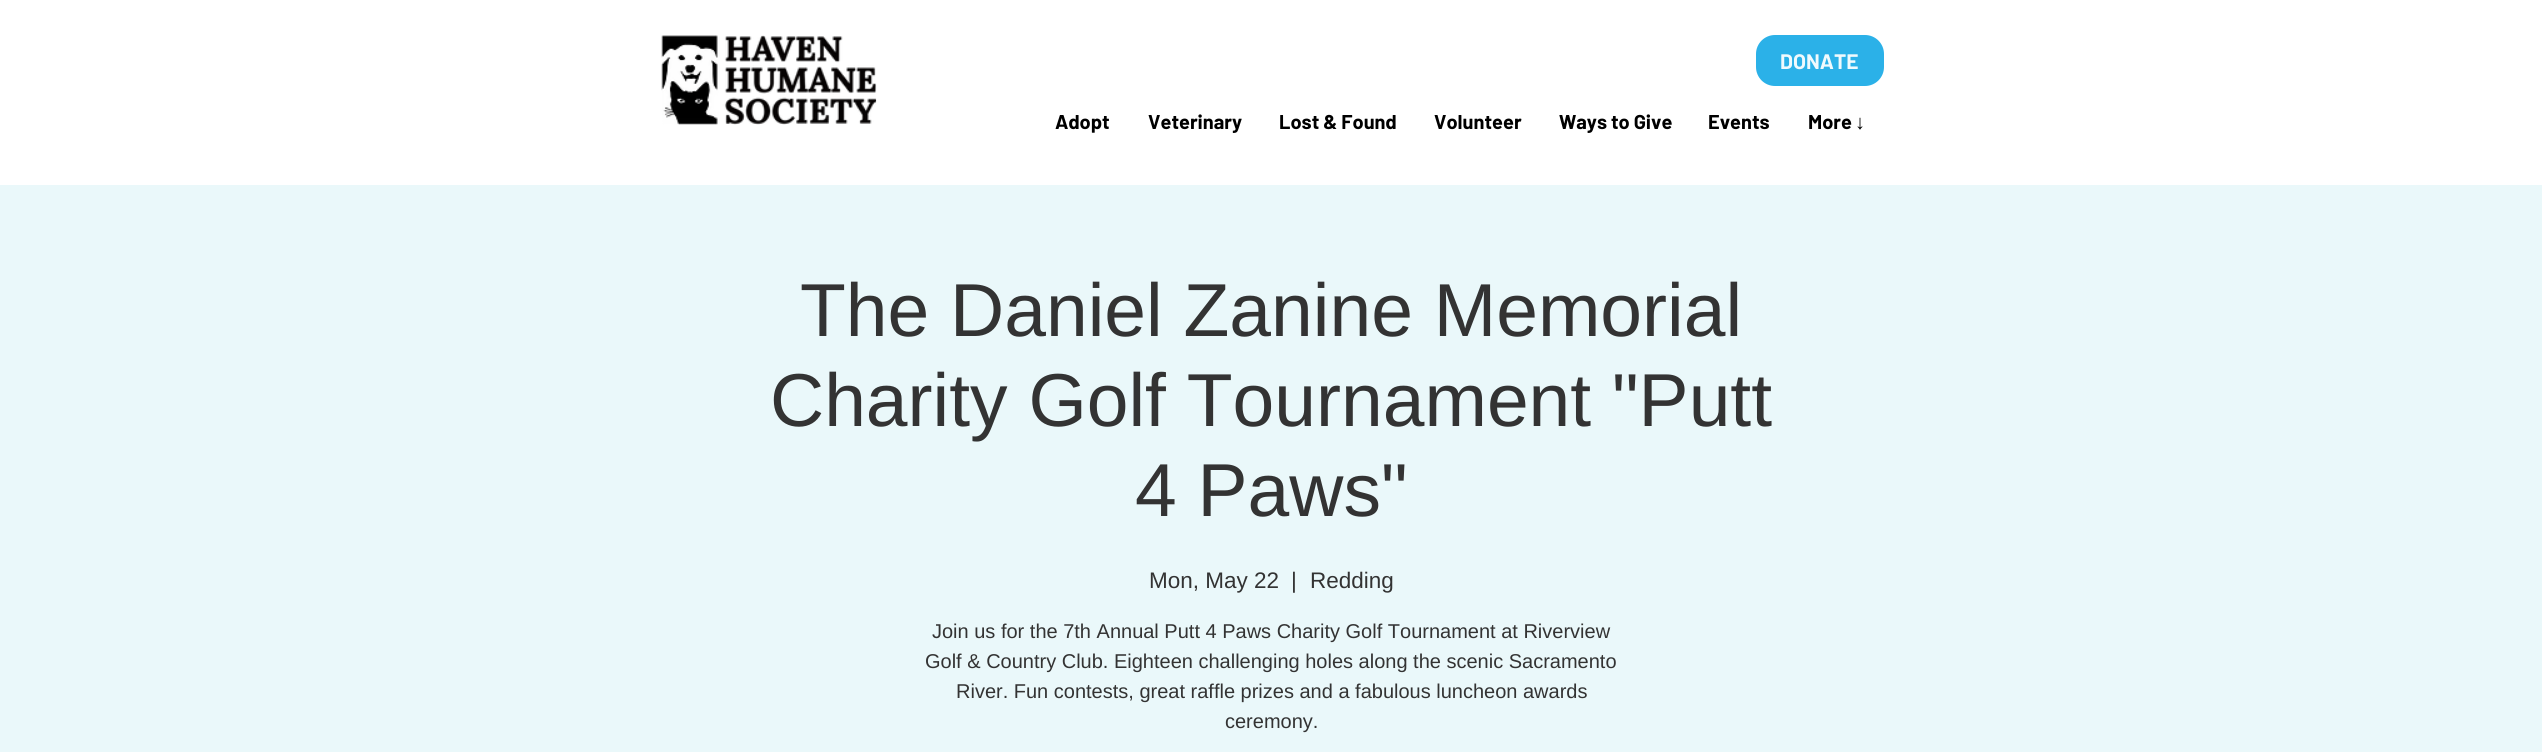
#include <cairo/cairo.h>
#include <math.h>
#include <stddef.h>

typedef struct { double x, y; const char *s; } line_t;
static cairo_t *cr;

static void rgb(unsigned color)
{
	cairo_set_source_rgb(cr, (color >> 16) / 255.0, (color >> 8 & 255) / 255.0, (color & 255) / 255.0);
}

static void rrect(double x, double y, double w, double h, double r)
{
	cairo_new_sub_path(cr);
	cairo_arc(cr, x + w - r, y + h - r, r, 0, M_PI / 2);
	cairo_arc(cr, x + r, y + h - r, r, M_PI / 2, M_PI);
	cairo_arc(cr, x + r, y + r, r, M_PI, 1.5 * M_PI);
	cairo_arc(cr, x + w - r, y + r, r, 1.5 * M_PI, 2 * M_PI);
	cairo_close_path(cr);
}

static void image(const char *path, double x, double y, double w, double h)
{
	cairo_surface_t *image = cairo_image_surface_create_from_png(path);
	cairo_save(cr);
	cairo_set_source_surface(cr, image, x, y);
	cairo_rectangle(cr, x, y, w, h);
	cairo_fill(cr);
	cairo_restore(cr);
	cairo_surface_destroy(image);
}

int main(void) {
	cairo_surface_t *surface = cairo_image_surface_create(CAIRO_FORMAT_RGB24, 2542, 752);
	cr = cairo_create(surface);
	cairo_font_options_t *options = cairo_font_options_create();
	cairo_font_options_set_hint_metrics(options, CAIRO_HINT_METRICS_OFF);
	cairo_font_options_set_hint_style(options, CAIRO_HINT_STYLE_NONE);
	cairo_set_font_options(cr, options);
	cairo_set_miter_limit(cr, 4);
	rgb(0xffffff);
	cairo_paint(cr);
	image("img/1.png", 661, 35, 216, 90);
	rgb(0x2bb1e8);
	rrect(1756, 35, 128, 51, 19);
	cairo_fill(cr);
	rgb(0xeaf8fa);
	cairo_rectangle(cr, 0, 185, 2542, 567);
	cairo_fill(cr);
	cairo_select_font_face(cr, "Barlow", CAIRO_FONT_SLANT_NORMAL, CAIRO_FONT_WEIGHT_BOLD);
	cairo_set_font_size(cr, 21);
	rgb(0xf0fafd);
	cairo_move_to(cr, 1780, 69);
	cairo_show_text(cr, "DONATE");
	cairo_set_font_size(cr, 20);
	rgb(0x000000);
	{
		static const line_t items[] = {
			{1055, 129, "Adopt"},
			{1148, 129, "Veterinary"},
			{1279, 129, "Lost & Found"},
			{1434, 129, "Volunteer"},
			{1559, 129, "Ways to Give"},
			{1708, 129, "Events"},
			{1808, 129, "More"},
		};
		for (size_t i = 0; i < sizeof items / sizeof *items; i++) {
			cairo_move_to(cr, items[i].x, items[i].y);
			cairo_show_text(cr, items[i].s);
		}
	}
	cairo_select_font_face(cr, "Liberation Sans", CAIRO_FONT_SLANT_NORMAL, CAIRO_FONT_WEIGHT_BOLD);
	cairo_move_to(cr, 1855, 129);
	cairo_show_text(cr, "↓");
	cairo_select_font_face(cr, "Liberation Sans", CAIRO_FONT_SLANT_NORMAL, CAIRO_FONT_WEIGHT_NORMAL);
	cairo_set_font_size(cr, 75);
	rgb(0x333333);
	{
		static const line_t items[] = {
			{800, 336, "The Daniel Zanine Memorial"},
			{770, 426, "Charity Golf Tournament \"Putt"},
			{1135, 516, "4 Paws\""},
		};
		for (size_t i = 0; i < sizeof items / sizeof *items; i++) {
			cairo_move_to(cr, items[i].x, items[i].y);
			cairo_show_text(cr, items[i].s);
		}
	}
	cairo_set_font_size(cr, 22.5);
	{
		static const line_t items[] = {
			{1149, 588, "Mon, May 22"},
			{1291, 588, "|"},
			{1310, 588, "Redding"},
		};
		for (size_t i = 0; i < sizeof items / sizeof *items; i++) {
			cairo_move_to(cr, items[i].x, items[i].y);
			cairo_show_text(cr, items[i].s);
		}
	}
	cairo_set_font_size(cr, 20);
	{
		static const line_t items[] = {
			{932, 638, "Join us for the 7th Annual Putt 4 Paws Charity Golf Tournament at Riverview"},
			{925, 668, "Golf & Country Club. Eighteen challenging holes along the scenic Sacramento"},
			{956, 698, "River. Fun contests, great raffle prizes and a fabulous luncheon awards"},
			{1225, 728, "ceremony."},
		};
		for (size_t i = 0; i < sizeof items / sizeof *items; i++) {
			cairo_move_to(cr, items[i].x, items[i].y);
			cairo_show_text(cr, items[i].s);
		}
	}
	cairo_surface_write_to_png(surface, "page.png");
	cairo_font_options_destroy(options);
	cairo_destroy(cr);
	cairo_surface_destroy(surface);
	return 0;
}
